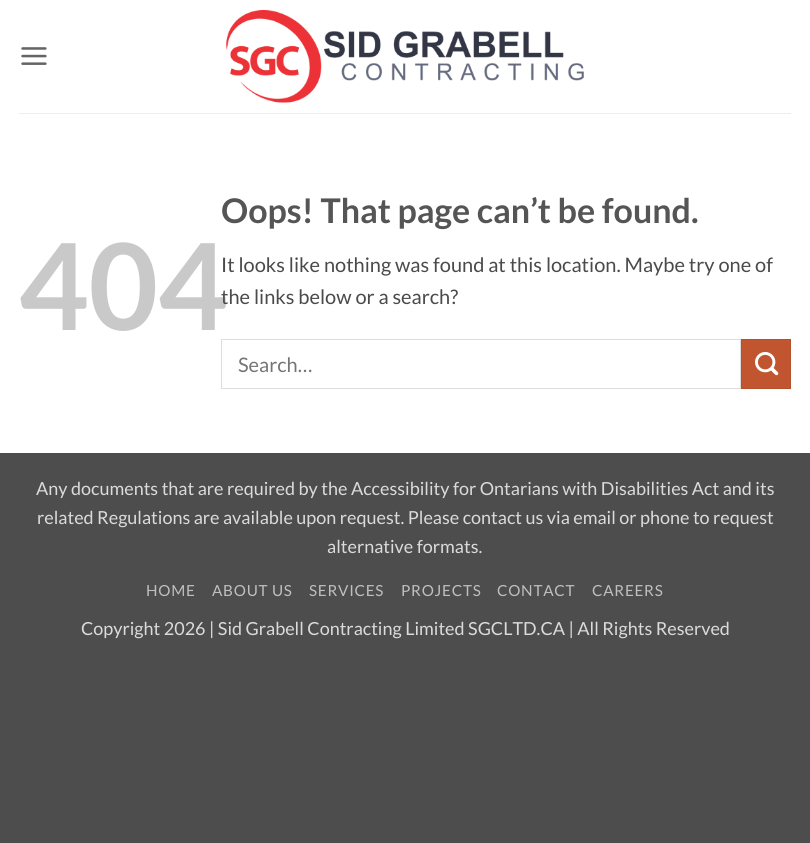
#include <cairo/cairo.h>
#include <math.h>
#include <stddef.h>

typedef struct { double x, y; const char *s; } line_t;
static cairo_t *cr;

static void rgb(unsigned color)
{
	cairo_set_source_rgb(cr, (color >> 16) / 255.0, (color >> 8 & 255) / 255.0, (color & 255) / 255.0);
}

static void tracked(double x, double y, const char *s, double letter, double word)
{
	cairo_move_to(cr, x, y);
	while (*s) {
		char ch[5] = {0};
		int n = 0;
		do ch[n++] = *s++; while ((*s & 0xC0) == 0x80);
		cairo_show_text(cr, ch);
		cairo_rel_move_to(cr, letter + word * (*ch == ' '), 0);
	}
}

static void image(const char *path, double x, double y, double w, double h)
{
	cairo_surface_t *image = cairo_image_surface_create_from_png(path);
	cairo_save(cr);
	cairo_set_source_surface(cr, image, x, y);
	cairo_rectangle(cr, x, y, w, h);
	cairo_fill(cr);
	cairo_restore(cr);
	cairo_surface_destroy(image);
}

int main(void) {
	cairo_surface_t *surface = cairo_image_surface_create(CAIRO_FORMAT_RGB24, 810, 843);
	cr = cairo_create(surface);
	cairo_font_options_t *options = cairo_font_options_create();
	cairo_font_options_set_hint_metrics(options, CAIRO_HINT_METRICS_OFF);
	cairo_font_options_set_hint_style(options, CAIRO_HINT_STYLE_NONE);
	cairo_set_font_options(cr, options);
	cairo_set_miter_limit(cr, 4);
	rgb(0x4d4d4d);
	cairo_paint(cr);
	rgb(0xffffff);
	cairo_rectangle(cr, 0, 0, 810, 453);
	cairo_fill(cr);
	image("img/1.png", 21, 47, 26, 18);
	image("img/2.png", 226, 10, 358, 93);
	rgb(0xededed);
	cairo_rectangle(cr, 19, 113, 772, 1);
	cairo_fill(cr);
	cairo_rectangle(cr, 221.5, 339.5, 519, 49);
	rgb(0xdddddd);
	cairo_set_line_width(cr, 1);
	cairo_stroke(cr);
	rgb(0xc05530);
	cairo_rectangle(cr, 741.5, 339.5, 49, 49);
	cairo_fill_preserve(cr);
	rgb(0xb6512e);
	cairo_stroke(cr);
	image("img/3.png", 755, 351, 24, 25);
	cairo_select_font_face(cr, "Lato", CAIRO_FONT_SLANT_NORMAL, CAIRO_FONT_WEIGHT_BOLD);
	cairo_set_font_size(cr, 120);
	rgb(0xc9c9c9);
	cairo_move_to(cr, 19, 330);
	cairo_show_text(cr, "404");
	cairo_set_font_size(cr, 34);
	rgb(0x555555);
	cairo_move_to(cr, 221, 223);
	cairo_show_text(cr, "Oops! That page can’t be found.");
	cairo_select_font_face(cr, "Lato", CAIRO_FONT_SLANT_NORMAL, CAIRO_FONT_WEIGHT_NORMAL);
	cairo_set_font_size(cr, 20);
	rgb(0x4a4a4a);
	cairo_move_to(cr, 221, 272);
	cairo_show_text(cr, "It looks like nothing was found at this location. Maybe try one of");
	cairo_move_to(cr, 221, 304);
	cairo_show_text(cr, "the links below or a search?");
	rgb(0x757575);
	cairo_move_to(cr, 238, 372);
	cairo_show_text(cr, "Search…");
	cairo_set_font_size(cr, 18);
	rgb(0xdbdbdb);
	{
		static const line_t items[] = {
			{36, 495, "Any documents that are required by the Accessibility for Ontarians with Disabilities Act and its"},
			{37, 524, "related Regulations are available upon request. Please contact us via email or phone to request"},
			{327, 553, "alternative formats."},
		};
		for (size_t i = 0; i < sizeof items / sizeof *items; i++) {
			cairo_move_to(cr, items[i].x, items[i].y);
			cairo_show_text(cr, items[i].s);
		}
	}
	cairo_set_font_size(cr, 15.25);
	rgb(0xbfbfbf);
	{
		static const line_t items[] = {
			{146, 596, "HOME"},
			{212, 596, "ABOUT US"},
			{309, 596, "SERVICES"},
			{401, 596, "PROJECTS"},
			{497, 596, "CONTACT"},
			{592, 596, "CAREERS"},
		};
		for (size_t i = 0; i < sizeof items / sizeof *items; i++) {
			tracked(items[i].x, items[i].y, items[i].s, 0.75, 0);
		}
	}
	cairo_set_font_size(cr, 18);
	rgb(0xdbdbdb);
	cairo_move_to(cr, 81, 635);
	cairo_show_text(cr, "Copyright 2026 | Sid Grabell Contracting Limited SGCLTD.CA | All Rights Reserved");
	cairo_surface_write_to_png(surface, "page.png");
	cairo_font_options_destroy(options);
	cairo_destroy(cr);
	cairo_surface_destroy(surface);
	return 0;
}
